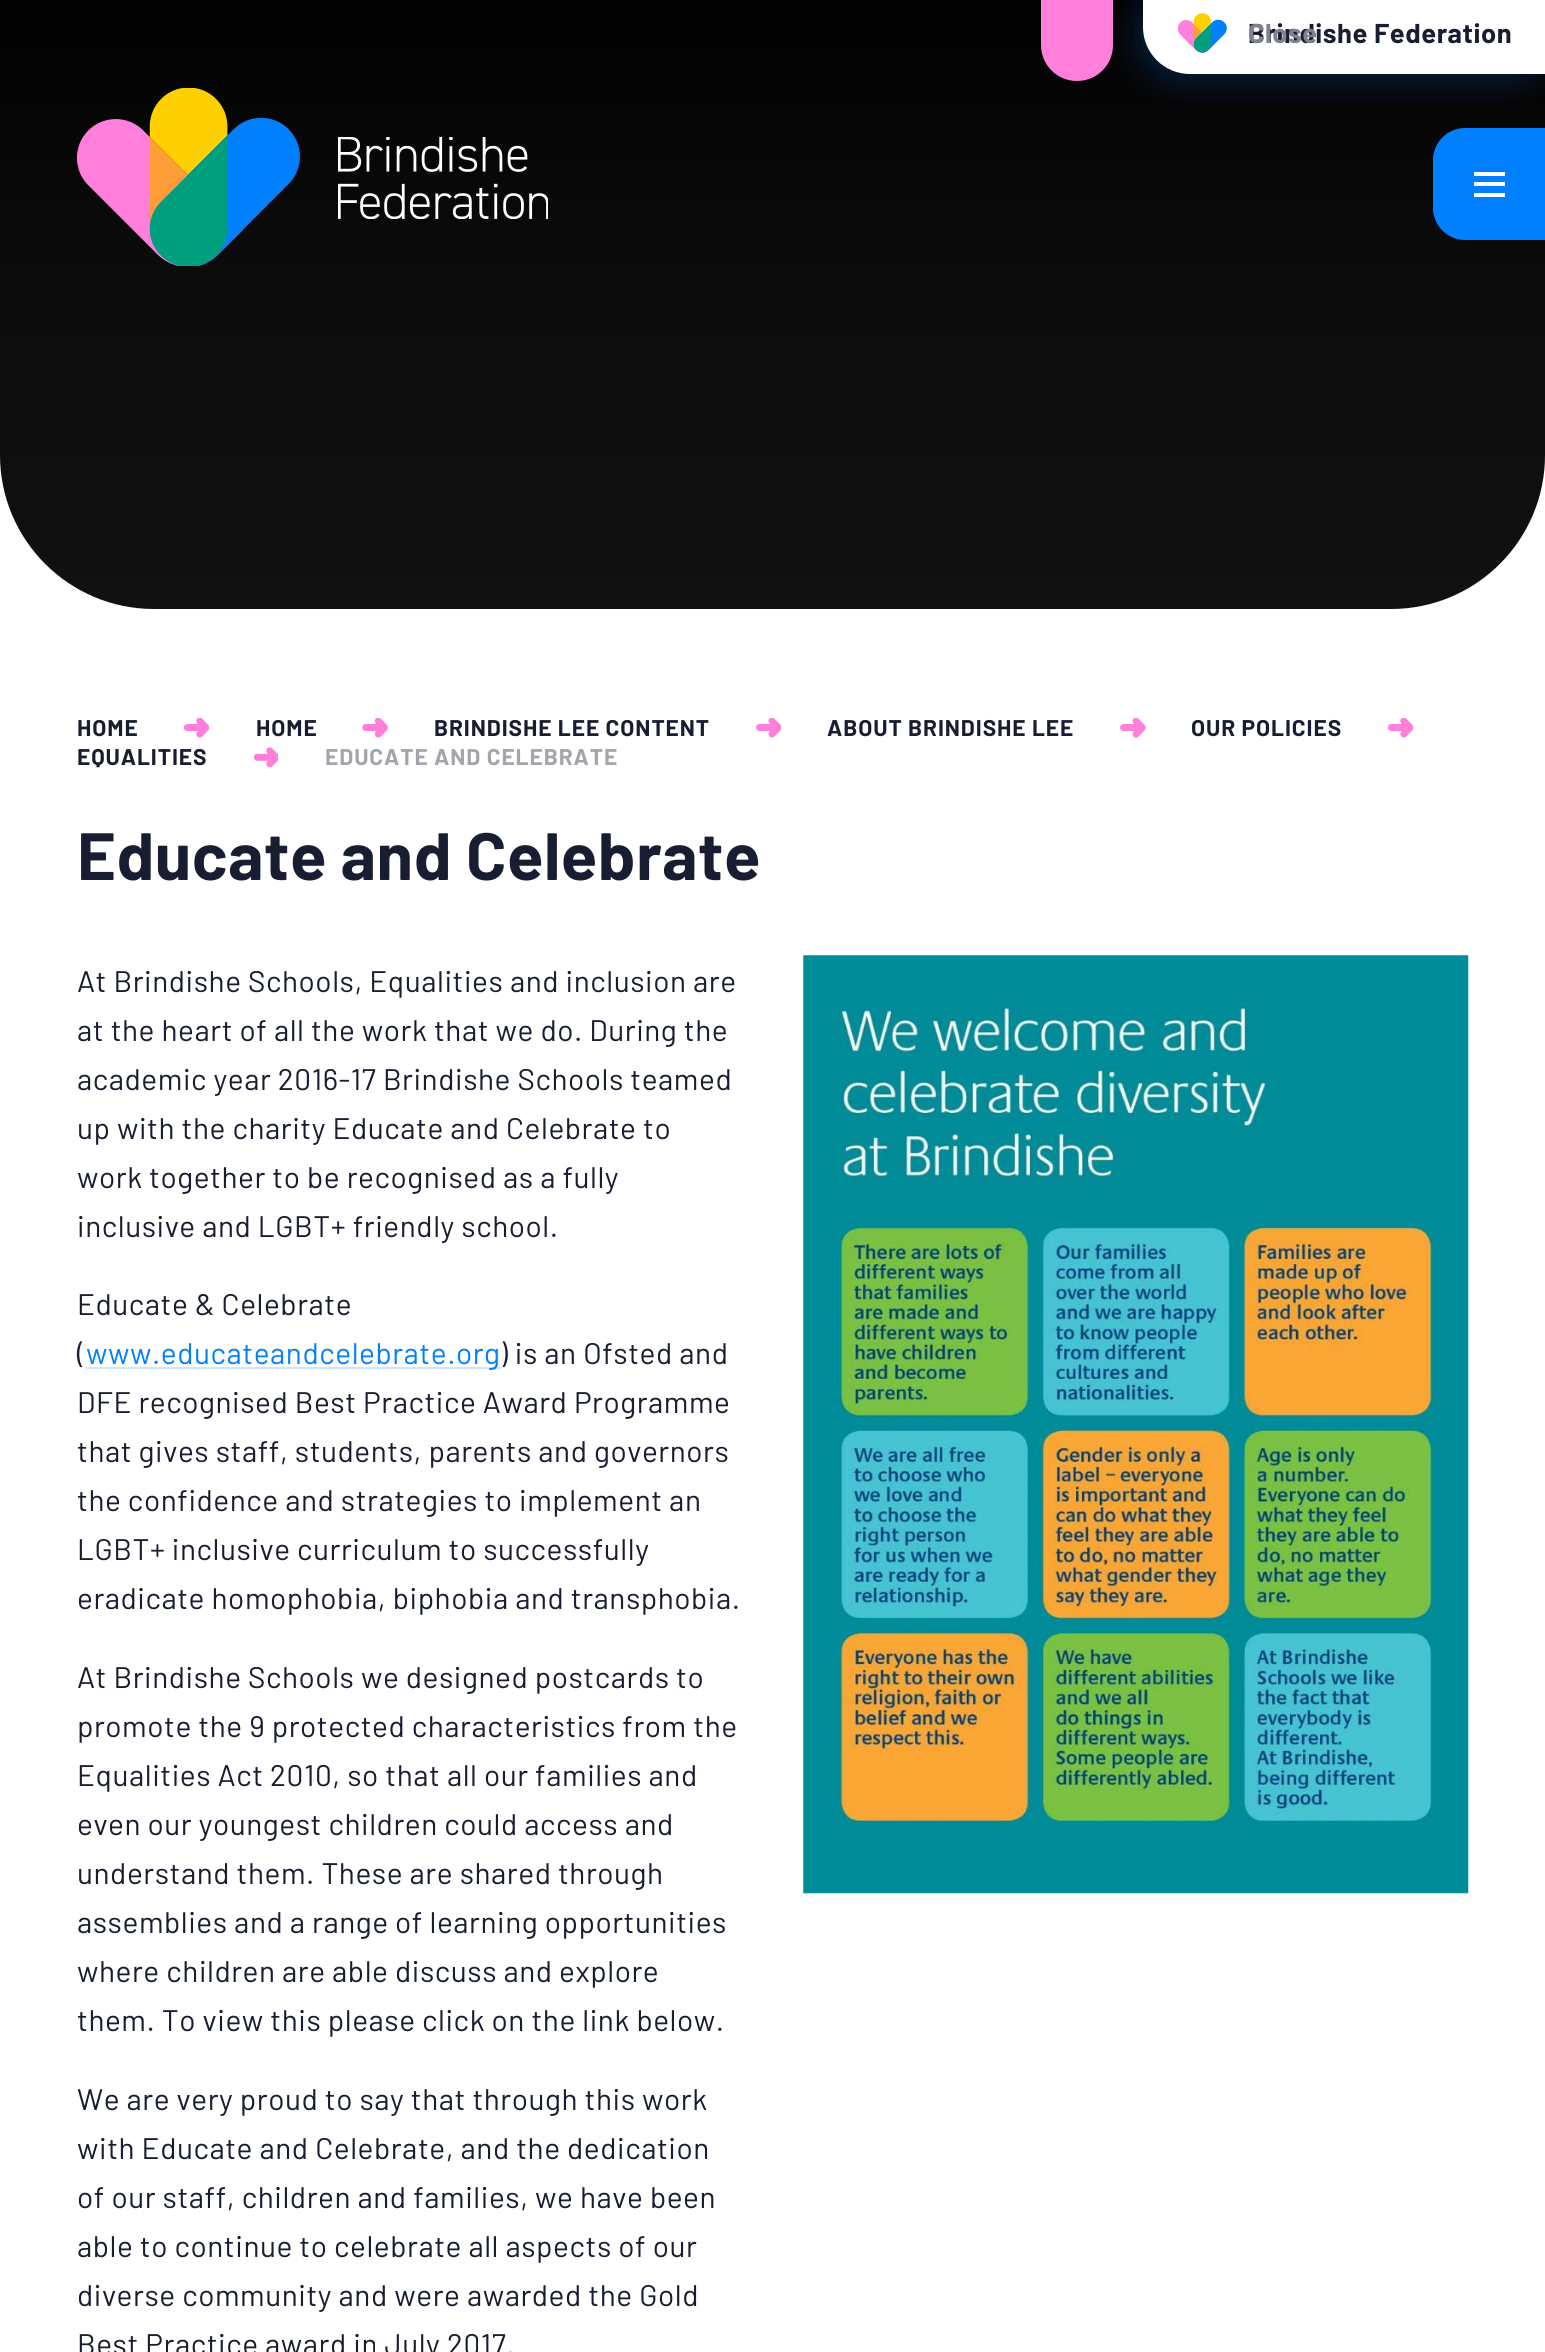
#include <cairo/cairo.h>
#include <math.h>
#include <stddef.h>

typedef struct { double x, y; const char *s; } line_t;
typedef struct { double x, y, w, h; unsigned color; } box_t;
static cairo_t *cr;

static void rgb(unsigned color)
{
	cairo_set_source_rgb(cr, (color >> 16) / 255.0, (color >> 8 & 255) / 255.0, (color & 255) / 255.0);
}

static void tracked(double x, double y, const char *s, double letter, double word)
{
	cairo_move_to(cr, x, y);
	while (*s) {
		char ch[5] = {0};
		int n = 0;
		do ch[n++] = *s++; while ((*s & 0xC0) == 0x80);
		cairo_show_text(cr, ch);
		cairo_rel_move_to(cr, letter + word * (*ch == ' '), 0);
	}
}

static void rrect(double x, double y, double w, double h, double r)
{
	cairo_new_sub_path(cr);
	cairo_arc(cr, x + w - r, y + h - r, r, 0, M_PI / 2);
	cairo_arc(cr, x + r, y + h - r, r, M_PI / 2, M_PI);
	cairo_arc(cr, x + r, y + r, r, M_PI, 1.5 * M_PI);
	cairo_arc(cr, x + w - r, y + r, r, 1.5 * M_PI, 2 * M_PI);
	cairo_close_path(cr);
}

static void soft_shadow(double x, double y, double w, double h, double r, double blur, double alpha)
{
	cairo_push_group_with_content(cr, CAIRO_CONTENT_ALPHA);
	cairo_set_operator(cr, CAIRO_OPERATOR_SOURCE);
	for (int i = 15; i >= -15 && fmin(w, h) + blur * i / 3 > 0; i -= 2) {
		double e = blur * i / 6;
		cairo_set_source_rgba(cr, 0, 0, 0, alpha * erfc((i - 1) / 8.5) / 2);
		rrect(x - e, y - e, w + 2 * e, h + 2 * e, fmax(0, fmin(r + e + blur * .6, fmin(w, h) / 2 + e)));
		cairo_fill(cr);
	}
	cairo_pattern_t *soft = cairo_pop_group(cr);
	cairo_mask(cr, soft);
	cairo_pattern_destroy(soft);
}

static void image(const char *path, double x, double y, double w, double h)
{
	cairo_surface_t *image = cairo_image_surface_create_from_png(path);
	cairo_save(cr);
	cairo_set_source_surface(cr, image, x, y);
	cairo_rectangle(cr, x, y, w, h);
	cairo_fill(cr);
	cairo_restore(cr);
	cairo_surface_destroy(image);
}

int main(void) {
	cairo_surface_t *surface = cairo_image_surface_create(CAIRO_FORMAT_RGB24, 1545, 2352);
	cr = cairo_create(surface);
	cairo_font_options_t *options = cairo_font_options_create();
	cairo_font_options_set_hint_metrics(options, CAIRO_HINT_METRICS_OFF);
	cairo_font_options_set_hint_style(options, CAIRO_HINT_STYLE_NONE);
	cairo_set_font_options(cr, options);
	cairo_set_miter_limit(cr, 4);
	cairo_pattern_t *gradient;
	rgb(0xffffff);
	cairo_paint(cr);
	rgb(0x111111);
	cairo_new_path(cr);
	cairo_move_to(cr, 0, -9);
	cairo_line_to(cr, 1545, -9);
	cairo_line_to(cr, 1545, 455);
	cairo_curve_to(cr, 1545, 540, 1476, 609, 1391, 609);
	cairo_line_to(cr, 154, 609);
	cairo_curve_to(cr, 69, 609, 0, 540, 0, 455);
	cairo_close_path(cr);
	cairo_fill(cr);
	gradient = cairo_pattern_create_linear(773, -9, 773, 609);
	cairo_pattern_add_color_stop_rgba(gradient, 0, 0, 0, 0, 0.9);
	cairo_pattern_add_color_stop_rgba(gradient, 0.5, 0, 0, 0, 0.3);
	cairo_pattern_add_color_stop_rgba(gradient, 1, 0, 0, 0, 0);
	cairo_set_source(cr, gradient);
	cairo_pattern_destroy(gradient);
	cairo_new_path(cr);
	cairo_move_to(cr, 0, -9);
	cairo_line_to(cr, 1545, -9);
	cairo_line_to(cr, 1545, 455);
	cairo_curve_to(cr, 1545, 540, 1476, 609, 1391, 609);
	cairo_line_to(cr, 154, 609);
	cairo_curve_to(cr, 69, 609, 0, 540, 0, 455);
	cairo_close_path(cr);
	cairo_fill(cr);
	rgb(0x007fff);
	soft_shadow(1143, -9, 402, 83, 47, 17.5, 0.3);
	rgb(0xff7fdb);
	cairo_new_path(cr);
	cairo_move_to(cr, 1041, -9);
	cairo_line_to(cr, 1113, -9);
	cairo_line_to(cr, 1113, 45);
	cairo_curve_to(cr, 1113, 65, 1097, 81, 1077, 81);
	cairo_curve_to(cr, 1057, 81, 1041, 65, 1041, 45);
	cairo_close_path(cr);
	cairo_fill(cr);
	rgb(0xffffff);
	cairo_new_path(cr);
	cairo_move_to(cr, 1143, -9);
	cairo_line_to(cr, 1545, -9);
	cairo_line_to(cr, 1545, 74);
	cairo_line_to(cr, 1190, 74);
	cairo_curve_to(cr, 1164, 74, 1143, 53, 1143, 27);
	cairo_close_path(cr);
	cairo_fill(cr);
	image("img/1.png", 1178, 13, 49, 40);
	image("img/2.png", 77, 88, 223, 178);
	image("img/3.png", 338, 137, 210, 82);
	rgb(0x007fff);
	cairo_new_path(cr);
	cairo_move_to(cr, 1465, 128);
	cairo_line_to(cr, 1545, 128);
	cairo_line_to(cr, 1545, 240);
	cairo_line_to(cr, 1465, 240);
	cairo_curve_to(cr, 1447.5, 240, 1433, 225.5, 1433, 208);
	cairo_line_to(cr, 1433, 160);
	cairo_curve_to(cr, 1433, 142.5, 1447.5, 128, 1465, 128);
	cairo_close_path(cr);
	cairo_fill(cr);
	{
		static const box_t items[] = {
			{1474, 172, 31, 4, 0xffffff},
			{1474, 182, 31, 4, 0xffffff},
			{1474, 193, 31, 4, 0xffffff},
		};
		for (size_t i = 0; i < sizeof items / sizeof *items; i++) {
			rgb(items[i].color);
			cairo_rectangle(cr, items[i].x, items[i].y, items[i].w, items[i].h);
			cairo_fill(cr);
		}
	}
	image("img/4.png", 184, 718, 25, 20);
	image("img/5.png", 362, 718, 26, 20);
	image("img/6.png", 756, 718, 25, 20);
	image("img/7.png", 1120, 718, 26, 20);
	image("img/4.png", 1388, 718, 25, 20);
	image("img/8.png", 254, 747, 24, 20);
	rgb(0xcce5ff);
	cairo_rectangle(cr, 86, 1367, 415, 2);
	cairo_fill(cr);
	image("img/9.png", 803, 955, 666, 939);
	cairo_select_font_face(cr, "Barlow", CAIRO_FONT_SLANT_NORMAL, CAIRO_FONT_WEIGHT_BOLD);
	cairo_set_font_size(cr, 27.25);
	rgb(0x191d32);
	tracked(1248, 43, "Brindishe Federation", 0.55, 0);
	rgb(0x80828e);
	tracked(1248, 43, "Close", 0.55, 0);
	cairo_set_font_size(cr, 22.75);
	rgb(0x191d32);
	{
		static const line_t items[] = {
			{77, 736, "HOME"},
			{256, 736, "HOME"},
			{434, 736, "BRINDISHE LEE CONTENT"},
			{827, 736, "ABOUT BRINDISHE LEE"},
			{1191, 736, "OUR POLICIES"},
			{77, 765, "EQUALITIES"},
		};
		for (size_t i = 0; i < sizeof items / sizeof *items; i++) {
			tracked(items[i].x, items[i].y, items[i].s, 0.9, 0);
		}
	}
	rgb(0xa3a5ad);
	tracked(325, 765, "EDUCATE AND CELEBRATE", 0.9, 0);
	cairo_set_font_size(cr, 66.75);
	rgb(0x191d32);
	tracked(77, 880, "Educate and Celebrate", 0.55, 0);
	cairo_select_font_face(cr, "Barlow", CAIRO_FONT_SLANT_NORMAL, CAIRO_FONT_WEIGHT_NORMAL);
	cairo_set_font_size(cr, 29.75);
	{
		static const line_t items[] = {
			{77, 992, "At Brindishe Schools, Equalities and inclusion are"},
			{77, 1041, "at the heart of all the work that we do. During the"},
			{77, 1090, "academic year 2016-17 Brindishe Schools teamed"},
			{77, 1139, "up with the charity Educate and Celebrate to"},
			{77, 1188, "work together to be recognised as a fully"},
			{77, 1237, "inclusive and LGBT+ friendly school."},
			{77, 1315, "Educate & Celebrate"},
			{77, 1364, "("},
		};
		for (size_t i = 0; i < sizeof items / sizeof *items; i++) {
			tracked(items[i].x, items[i].y, items[i].s, 0.55, 0);
		}
	}
	rgb(0x007fff);
	tracked(86, 1364, "www.educateandcelebrate.org", 0.55, 0);
	rgb(0x191d32);
	{
		static const line_t items[] = {
			{500, 1364, ") is an Ofsted and"},
			{77, 1413, "DFE recognised Best Practice Award Programme"},
			{77, 1462, "that gives staff, students, parents and governors"},
			{77, 1511, "the confidence and strategies to implement an"},
			{77, 1560, "LGBT+ inclusive curriculum to successfully"},
			{77, 1609, "eradicate homophobia, biphobia and transphobia."},
			{77, 1688, "At Brindishe Schools we designed postcards to"},
			{77, 1737, "promote the 9 protected characteristics from the"},
			{77, 1786, "Equalities Act 2010, so that all our families and"},
			{77, 1835, "even our youngest children could access and"},
			{77, 1884, "understand them. These are shared through"},
			{77, 1933, "assemblies and a range of learning opportunities"},
			{77, 1982, "where children are able discuss and explore"},
			{77, 2031, "them. To view this please click on the link below."},
			{77, 2110, "We are very proud to say that through this work"},
			{77, 2159, "with Educate and Celebrate, and the dedication"},
			{77, 2208, "of our staff, children and families, we have been"},
			{77, 2257, "able to continue to celebrate all aspects of our"},
			{77, 2306, "diverse community and were awarded the Gold"},
			{77, 2355, "Best Practice award in July 2017."},
		};
		for (size_t i = 0; i < sizeof items / sizeof *items; i++) {
			tracked(items[i].x, items[i].y, items[i].s, 0.55, 0);
		}
	}
	cairo_surface_write_to_png(surface, "page.png");
	cairo_font_options_destroy(options);
	cairo_destroy(cr);
	cairo_surface_destroy(surface);
	return 0;
}
